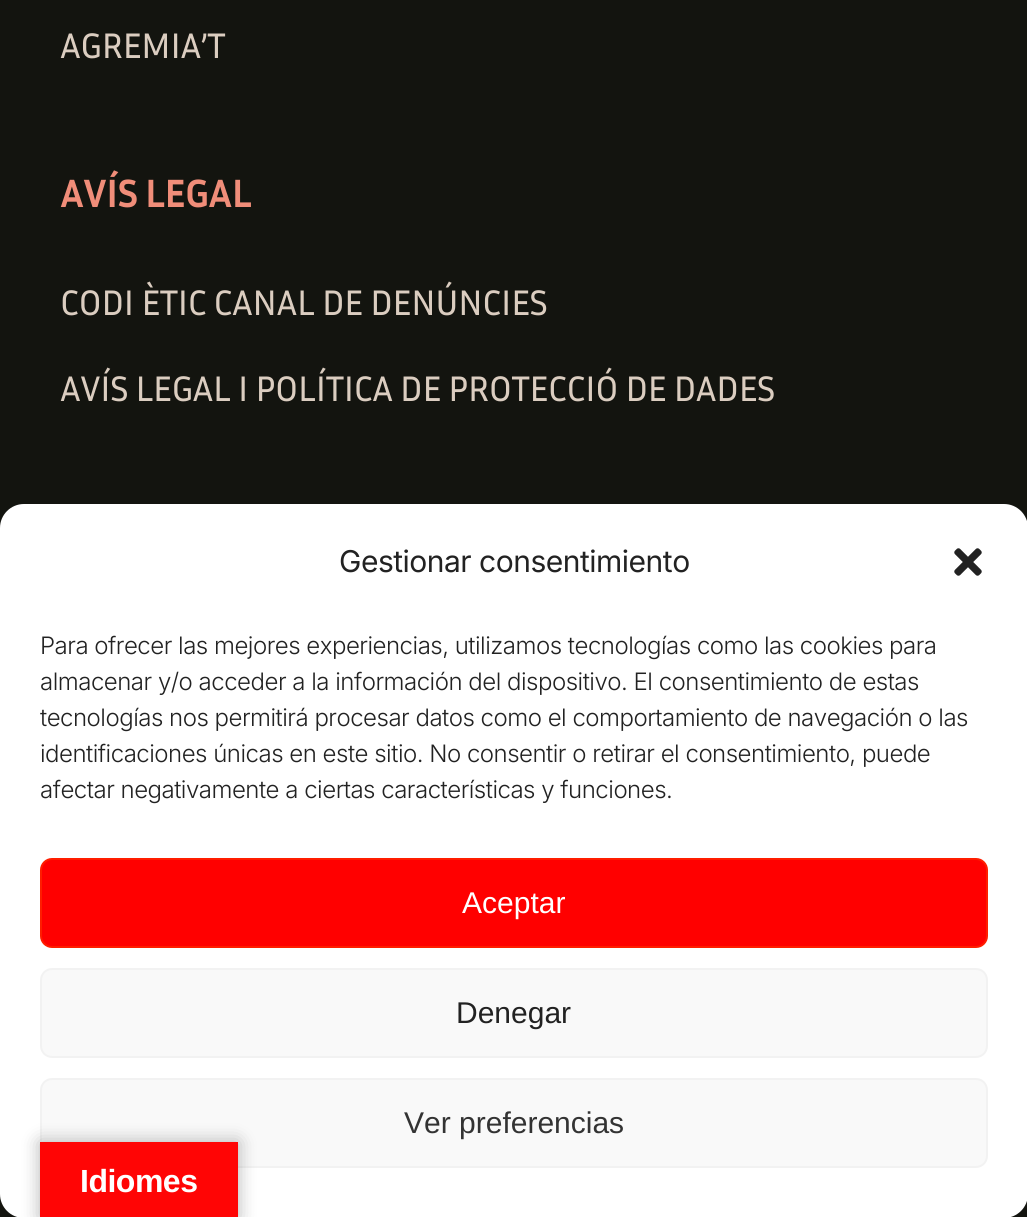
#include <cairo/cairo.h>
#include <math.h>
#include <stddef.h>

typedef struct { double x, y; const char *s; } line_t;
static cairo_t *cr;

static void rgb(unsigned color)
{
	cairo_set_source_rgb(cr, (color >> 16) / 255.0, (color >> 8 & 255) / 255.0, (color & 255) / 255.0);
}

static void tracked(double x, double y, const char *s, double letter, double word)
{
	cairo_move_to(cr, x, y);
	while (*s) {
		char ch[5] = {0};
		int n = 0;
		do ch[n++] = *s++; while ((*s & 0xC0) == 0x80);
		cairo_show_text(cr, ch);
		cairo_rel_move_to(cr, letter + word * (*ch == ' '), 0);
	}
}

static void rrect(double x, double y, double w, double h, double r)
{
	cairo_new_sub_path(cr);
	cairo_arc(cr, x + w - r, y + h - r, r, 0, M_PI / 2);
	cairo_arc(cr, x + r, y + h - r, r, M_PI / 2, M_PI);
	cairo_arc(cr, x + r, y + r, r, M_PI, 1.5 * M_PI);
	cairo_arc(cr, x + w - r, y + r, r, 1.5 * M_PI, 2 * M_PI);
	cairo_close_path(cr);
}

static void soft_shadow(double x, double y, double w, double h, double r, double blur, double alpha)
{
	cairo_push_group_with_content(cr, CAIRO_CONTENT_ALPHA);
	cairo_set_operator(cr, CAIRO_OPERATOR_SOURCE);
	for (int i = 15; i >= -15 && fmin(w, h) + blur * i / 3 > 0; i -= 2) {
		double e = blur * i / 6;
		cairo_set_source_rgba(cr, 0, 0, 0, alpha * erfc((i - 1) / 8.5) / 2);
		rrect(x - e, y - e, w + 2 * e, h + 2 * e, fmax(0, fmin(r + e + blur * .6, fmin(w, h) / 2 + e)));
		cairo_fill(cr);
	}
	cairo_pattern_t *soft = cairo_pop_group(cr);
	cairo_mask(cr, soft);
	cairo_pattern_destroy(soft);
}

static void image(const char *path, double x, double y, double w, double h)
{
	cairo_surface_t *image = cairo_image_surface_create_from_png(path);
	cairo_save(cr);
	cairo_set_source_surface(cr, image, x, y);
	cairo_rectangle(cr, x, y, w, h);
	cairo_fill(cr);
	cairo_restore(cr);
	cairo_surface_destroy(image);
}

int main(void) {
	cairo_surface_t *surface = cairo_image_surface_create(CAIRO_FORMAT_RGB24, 1027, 1217);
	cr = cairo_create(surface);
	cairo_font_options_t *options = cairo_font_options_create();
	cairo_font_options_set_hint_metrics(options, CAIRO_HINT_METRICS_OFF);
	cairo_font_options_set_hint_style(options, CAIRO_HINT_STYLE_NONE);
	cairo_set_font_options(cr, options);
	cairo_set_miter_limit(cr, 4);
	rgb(0x13140f);
	cairo_paint(cr);
	rgb(0xffffff);
	rrect(0, 504, 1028, 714, 24);
	cairo_fill(cr);
	image("img/1.png", 954, 548, 28, 28);
	rgb(0xff0000);
	rrect(41, 859, 946, 88, 11);
	cairo_fill_preserve(cr);
	rgb(0xff1d00);
	cairo_stroke(cr);
	rgb(0xf9f9f9);
	rrect(41, 969, 946, 88, 11);
	cairo_fill_preserve(cr);
	rgb(0xf2f2f2);
	cairo_stroke(cr);
	rgb(0xf9f9f9);
	rrect(41, 1079, 946, 88, 11);
	cairo_fill_preserve(cr);
	rgb(0xf2f2f2);
	cairo_stroke(cr);
	rgb(0x000000);
	soft_shadow(40, 1142, 198, 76, 0, 9, 0.3);
	rgb(0xff0505);
	cairo_rectangle(cr, 40, 1142, 198, 75);
	cairo_fill(cr);
	cairo_select_font_face(cr, "Inria Sans", CAIRO_FONT_SLANT_NORMAL, CAIRO_FONT_WEIGHT_NORMAL);
	cairo_set_font_size(cr, 36);
	rgb(0xdbcdc0);
	tracked(60, 58, "AGREMIA’T", -0.55, 0);
	cairo_select_font_face(cr, "Inria Sans", CAIRO_FONT_SLANT_NORMAL, CAIRO_FONT_WEIGHT_BOLD);
	cairo_set_font_size(cr, 40);
	rgb(0xf08d79);
	tracked(60, 207, "AVÍS LEGAL", -0.75, 0);
	cairo_select_font_face(cr, "Inria Sans", CAIRO_FONT_SLANT_NORMAL, CAIRO_FONT_WEIGHT_NORMAL);
	cairo_set_font_size(cr, 36);
	rgb(0xdbcdc0);
	tracked(60, 315, "CODI ÈTIC CANAL DE DENÚNCIES", -0.55, 0);
	tracked(60, 401, "AVÍS LEGAL I POLÍTICA DE PROTECCIÓ DE DADES", -0.55, 0);
	cairo_select_font_face(cr, "Inter", CAIRO_FONT_SLANT_NORMAL, CAIRO_FONT_WEIGHT_NORMAL);
	cairo_set_font_size(cr, 30);
	rgb(0x222222);
	tracked(339, 572, "Gestionar consentimiento", -0.5, 0);
	cairo_select_font_face(cr, "Inter Light", CAIRO_FONT_SLANT_NORMAL, CAIRO_FONT_WEIGHT_NORMAL);
	cairo_set_font_size(cr, 24);
	{
		static const line_t items[] = {
			{40, 654, "Para ofrecer las mejores experiencias, utilizamos tecnologías como las cookies para"},
			{40, 690, "almacenar y/o acceder a la información del dispositivo. El consentimiento de estas"},
			{40, 726, "tecnologías nos permitirá procesar datos como el comportamiento de navegación o las"},
			{40, 762, "identificaciones únicas en este sitio. No consentir o retirar el consentimiento, puede"},
			{40, 798, "afectar negativamente a ciertas características y funciones."},
		};
		for (size_t i = 0; i < sizeof items / sizeof *items; i++) {
			tracked(items[i].x, items[i].y, items[i].s, -0.5, 0);
		}
	}
	cairo_select_font_face(cr, "Liberation Sans", CAIRO_FONT_SLANT_NORMAL, CAIRO_FONT_WEIGHT_NORMAL);
	cairo_set_font_size(cr, 30);
	rgb(0xffffff);
	cairo_move_to(cr, 462, 913);
	cairo_show_text(cr, "Aceptar");
	rgb(0x222222);
	cairo_move_to(cr, 456, 1023);
	cairo_show_text(cr, "Denegar");
	rgb(0x333333);
	cairo_move_to(cr, 404, 1133);
	cairo_show_text(cr, "Ver preferencias");
	cairo_select_font_face(cr, "Liberation Sans", CAIRO_FONT_SLANT_NORMAL, CAIRO_FONT_WEIGHT_BOLD);
	cairo_set_font_size(cr, 32);
	rgb(0xffffff);
	tracked(80, 1192, "Idiomes", -0.5, 0);
	cairo_surface_write_to_png(surface, "page.png");
	cairo_font_options_destroy(options);
	cairo_destroy(cr);
	cairo_surface_destroy(surface);
	return 0;
}
